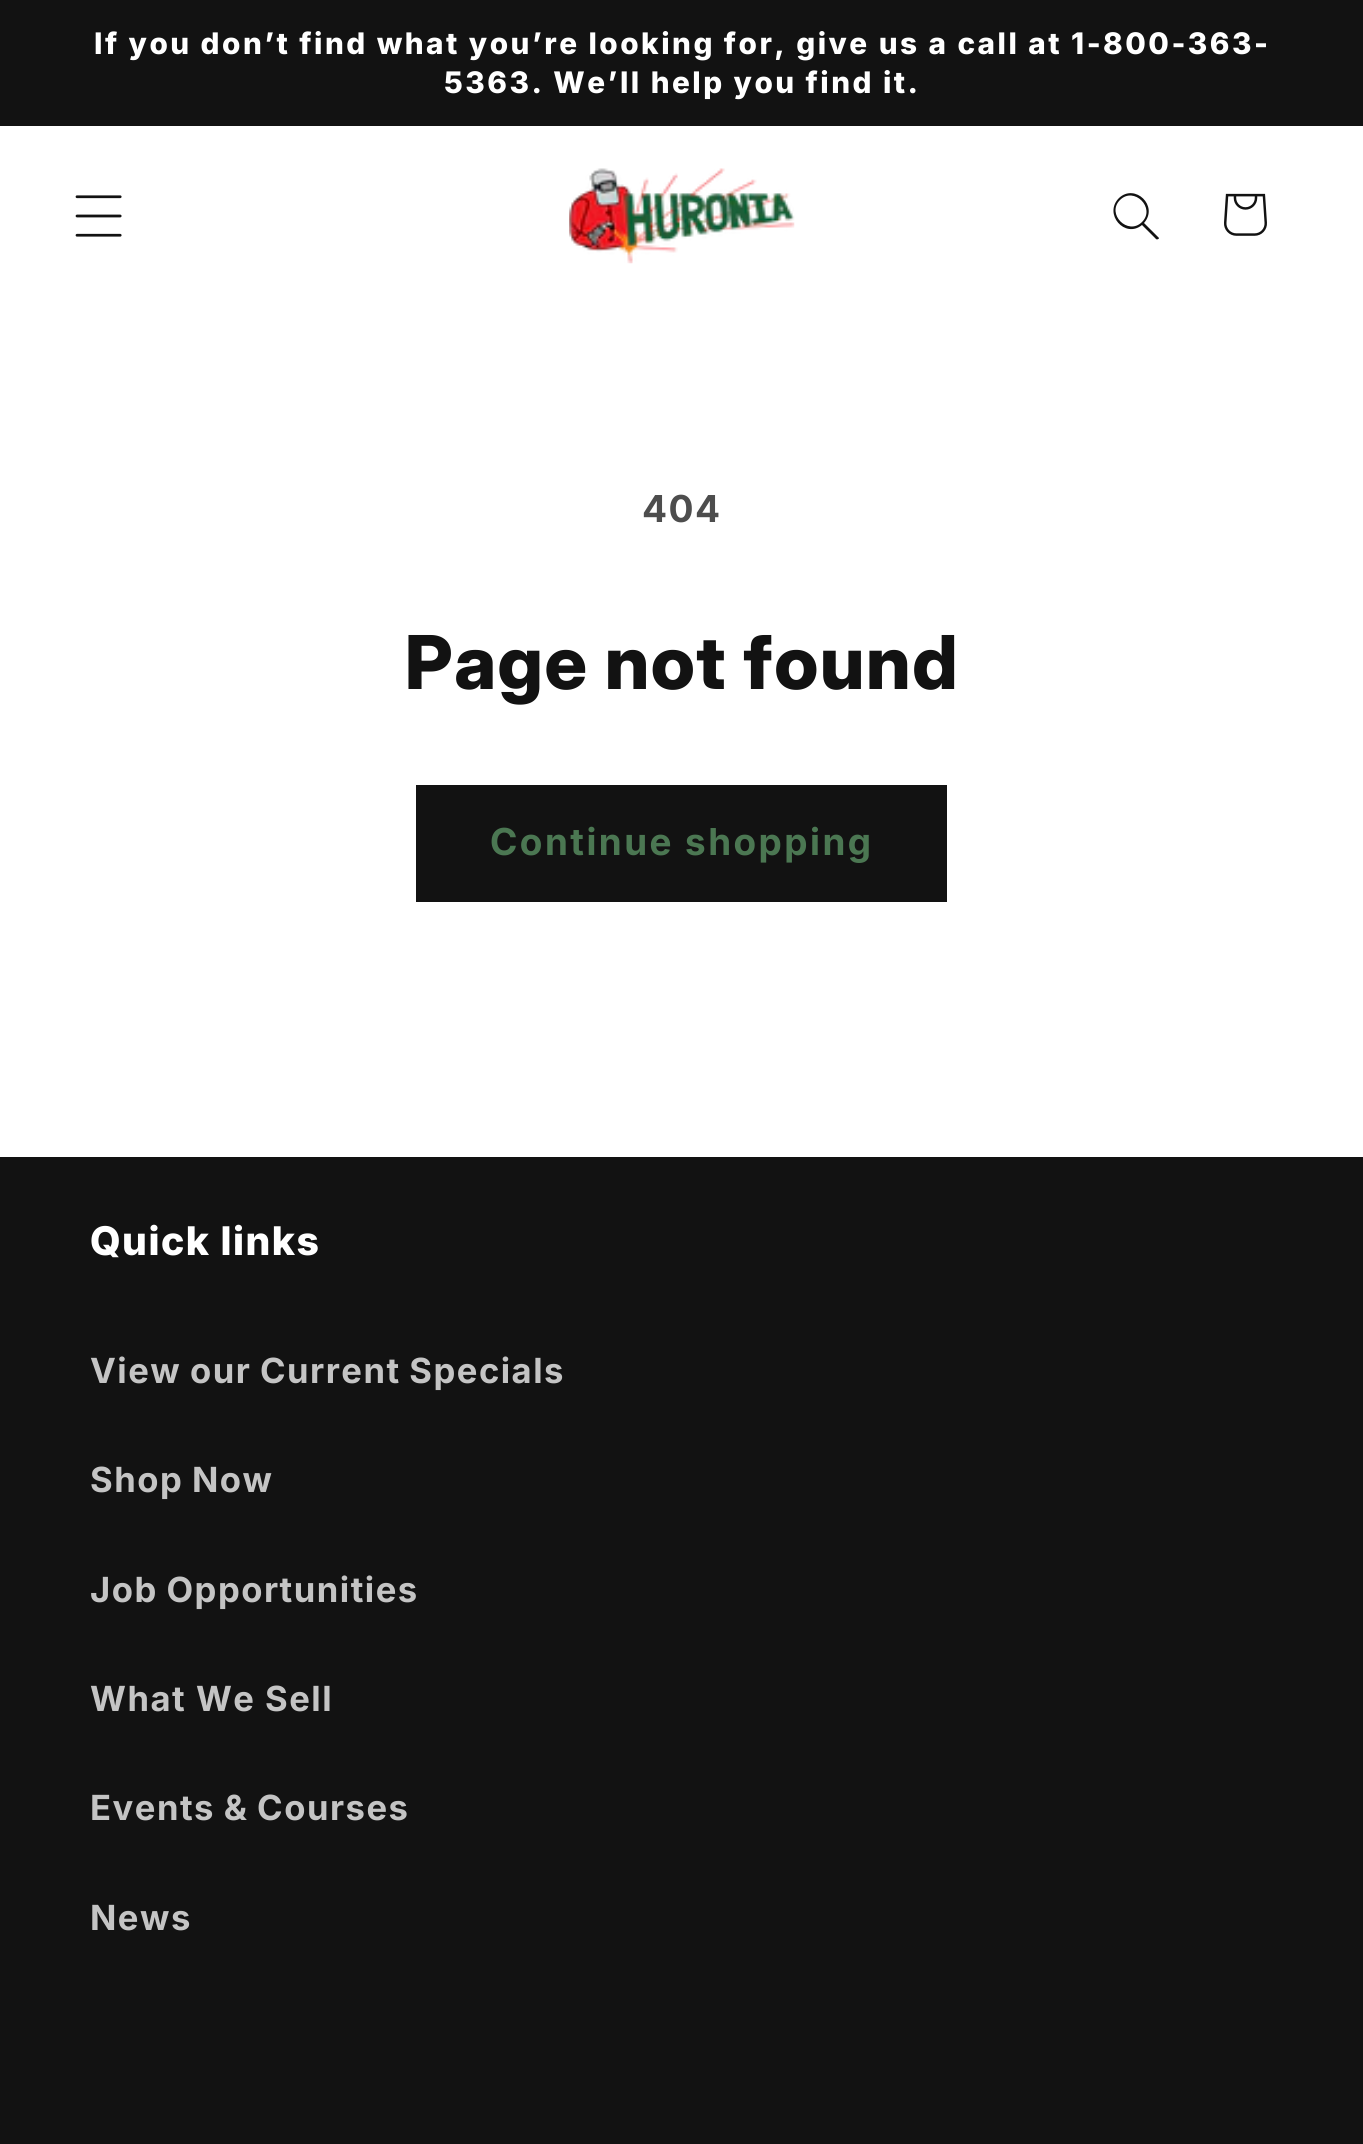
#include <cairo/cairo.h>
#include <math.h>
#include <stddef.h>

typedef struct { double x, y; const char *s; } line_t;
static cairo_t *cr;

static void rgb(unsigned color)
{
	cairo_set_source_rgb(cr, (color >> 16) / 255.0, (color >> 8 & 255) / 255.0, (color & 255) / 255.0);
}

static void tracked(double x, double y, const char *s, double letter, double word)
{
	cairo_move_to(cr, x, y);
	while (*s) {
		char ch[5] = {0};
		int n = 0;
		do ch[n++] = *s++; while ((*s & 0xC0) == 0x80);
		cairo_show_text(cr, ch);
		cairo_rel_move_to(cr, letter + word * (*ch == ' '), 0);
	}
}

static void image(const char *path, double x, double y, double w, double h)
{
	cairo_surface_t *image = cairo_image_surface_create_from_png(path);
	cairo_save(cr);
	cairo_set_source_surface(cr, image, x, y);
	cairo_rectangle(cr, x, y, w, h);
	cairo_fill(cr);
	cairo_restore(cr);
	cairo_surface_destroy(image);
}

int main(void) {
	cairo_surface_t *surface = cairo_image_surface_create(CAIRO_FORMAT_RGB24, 1363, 2144);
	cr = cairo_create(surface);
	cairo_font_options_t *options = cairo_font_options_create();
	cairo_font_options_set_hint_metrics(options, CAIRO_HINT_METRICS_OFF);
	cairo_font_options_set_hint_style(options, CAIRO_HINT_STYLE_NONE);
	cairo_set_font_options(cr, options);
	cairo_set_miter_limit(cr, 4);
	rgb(0xffffff);
	cairo_paint(cr);
	rgb(0x121212);
	cairo_rectangle(cr, 0, 0, 1363, 126);
	cairo_fill(cr);
	image("img/1.png", 75, 195, 47, 42);
	image("img/2.png", 569, 168, 226, 96);
	cairo_set_fill_rule(cr, CAIRO_FILL_RULE_EVEN_ODD);
	cairo_new_path(cr);
	cairo_move_to(cr, 1142, 222);
	cairo_curve_to(cr, 1128, 236, 1106, 214, 1120, 200);
	cairo_curve_to(cr, 1134, 186, 1156, 208, 1142, 222);
	cairo_move_to(cr, 1142, 225);
	cairo_curve_to(cr, 1125, 239, 1103, 214, 1119, 198);
	cairo_curve_to(cr, 1135, 183, 1159, 206, 1144, 223);
	cairo_line_to(cr, 1159, 238);
	cairo_curve_to(cr, 1159, 239, 1157, 240, 1156, 239);
	cairo_close_path(cr);
	cairo_fill(cr);
	image("img/3.png", 1224, 193, 43, 43);
	cairo_rectangle(cr, 416, 785, 531, 117);
	cairo_fill(cr);
	cairo_rectangle(cr, 0, 1157, 1363, 987);
	cairo_fill(cr);
	cairo_select_font_face(cr, "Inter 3 ExtraBold", CAIRO_FONT_SLANT_NORMAL, CAIRO_FONT_WEIGHT_NORMAL);
	cairo_set_font_size(cr, 29.7);
	rgb(0xffffff);
	tracked(94, 54, "If you don’t find what you’re looking for, give us a call at 1-800-363-", 2.48, 0);
	tracked(444, 93, "5363. We’ll help you find it.", 2.48, 0);
	cairo_select_font_face(cr, "Inter", CAIRO_FONT_SLANT_NORMAL, CAIRO_FONT_WEIGHT_BOLD);
	cairo_set_font_size(cr, 37.1);
	rgb(0x4d4d4d);
	tracked(642, 522, "404", 1.5, 0);
	cairo_select_font_face(cr, "Inter ExtraBold", CAIRO_FONT_SLANT_NORMAL, CAIRO_FONT_WEIGHT_NORMAL);
	cairo_set_font_size(cr, 74.25);
	rgb(0x121212);
	tracked(405, 689, "Page not found", 1.5, 0);
	cairo_select_font_face(cr, "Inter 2", CAIRO_FONT_SLANT_NORMAL, CAIRO_FONT_WEIGHT_BOLD);
	cairo_set_font_size(cr, 37.1);
	rgb(0x4b7752);
	tracked(490, 855, "Continue shopping", 2.48, 0);
	cairo_select_font_face(cr, "Inter 2 ExtraBold", CAIRO_FONT_SLANT_NORMAL, CAIRO_FONT_WEIGHT_NORMAL);
	cairo_set_font_size(cr, 39.5);
	rgb(0xffffff);
	tracked(90, 1255, "Quick links", 1.5, 0);
	cairo_select_font_face(cr, "Inter", CAIRO_FONT_SLANT_NORMAL, CAIRO_FONT_WEIGHT_BOLD);
	cairo_set_font_size(cr, 34.6);
	rgb(0xc4c4c4);
	{
		static const line_t items[] = {
			{90, 1383, "View our Current Specials"},
			{90, 1492, "Shop Now"},
			{90, 1602, "Job Opportunities"},
		};
		for (size_t i = 0; i < sizeof items / sizeof *items; i++) {
			tracked(items[i].x, items[i].y, items[i].s, 1.5, -1);
		}
	}
	tracked(90, 1711, "What We Sell", 1.5, 0);
	tracked(90, 1820, "Events & Courses", 1.5, -1);
	tracked(90, 1930, "News", 1.5, 0);
	cairo_surface_write_to_png(surface, "page.png");
	cairo_font_options_destroy(options);
	cairo_destroy(cr);
	cairo_surface_destroy(surface);
	return 0;
}
